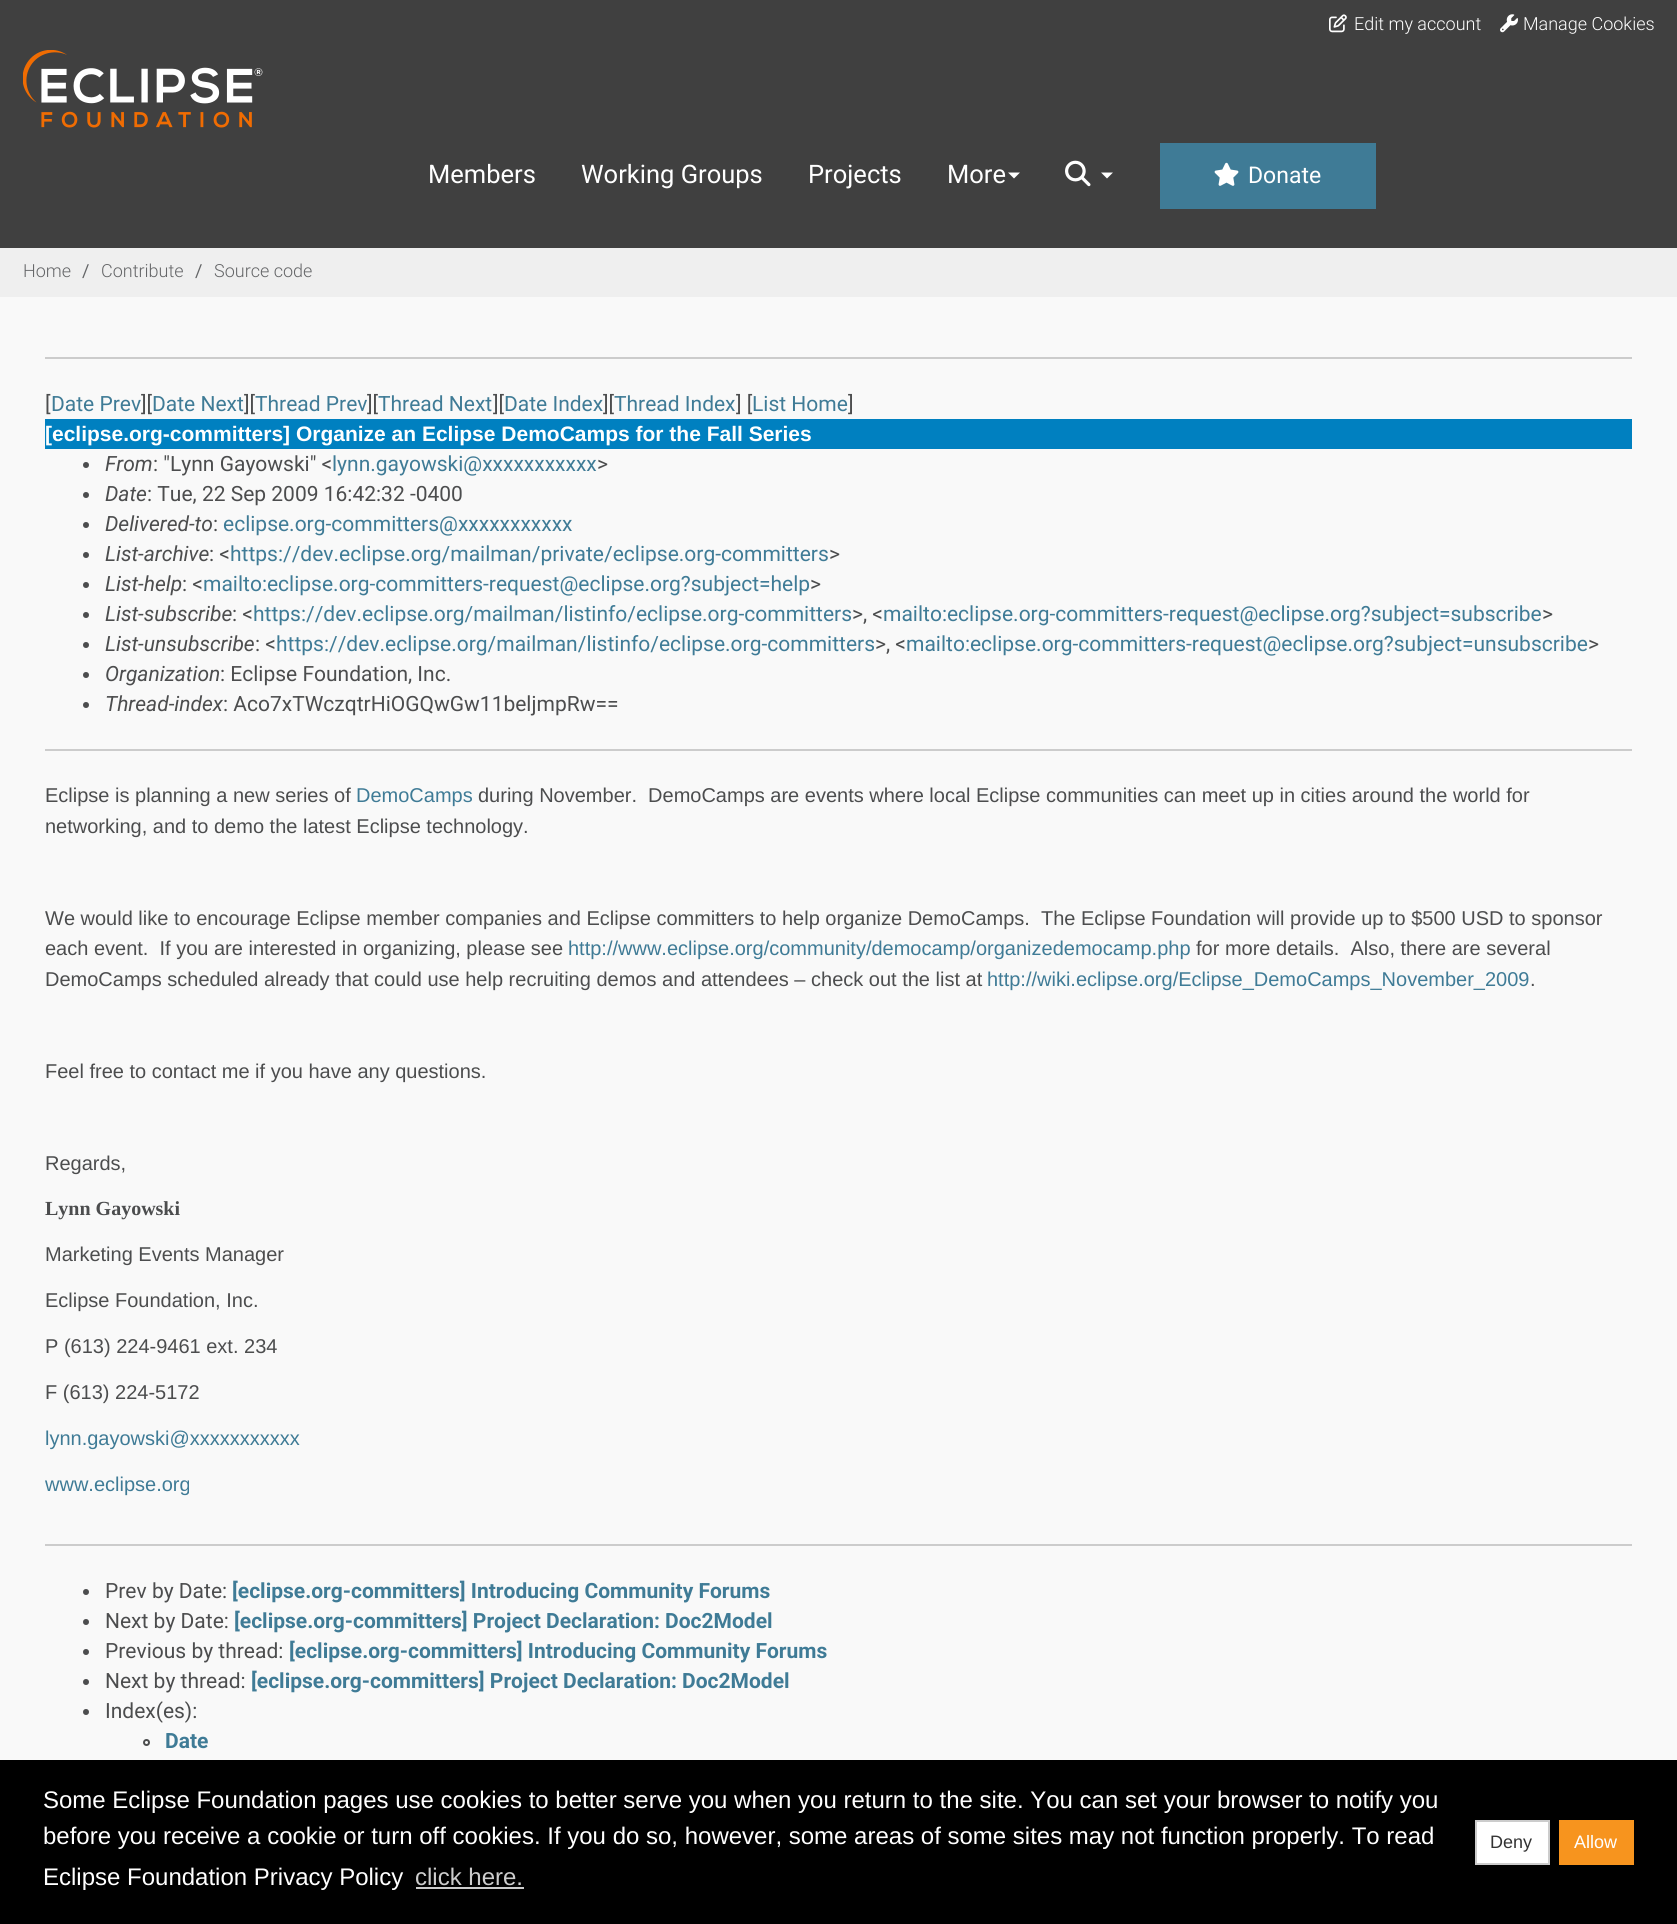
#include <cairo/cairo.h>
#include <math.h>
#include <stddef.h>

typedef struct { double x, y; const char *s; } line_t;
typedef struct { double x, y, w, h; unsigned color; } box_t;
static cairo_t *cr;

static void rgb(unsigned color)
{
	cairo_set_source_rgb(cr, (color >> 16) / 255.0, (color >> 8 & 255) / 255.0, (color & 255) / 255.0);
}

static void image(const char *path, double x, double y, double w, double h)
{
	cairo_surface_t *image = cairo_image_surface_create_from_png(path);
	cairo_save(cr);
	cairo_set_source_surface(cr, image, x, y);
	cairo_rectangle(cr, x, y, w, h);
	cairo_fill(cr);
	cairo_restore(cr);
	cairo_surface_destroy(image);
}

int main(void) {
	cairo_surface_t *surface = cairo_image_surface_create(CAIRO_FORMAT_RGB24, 1677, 1924);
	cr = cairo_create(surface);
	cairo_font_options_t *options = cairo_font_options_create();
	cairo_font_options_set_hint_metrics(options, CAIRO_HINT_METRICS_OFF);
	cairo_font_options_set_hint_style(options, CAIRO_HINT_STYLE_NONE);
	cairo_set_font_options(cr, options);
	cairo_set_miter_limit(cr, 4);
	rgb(0xf9f9f9);
	cairo_paint(cr);
	rgb(0x404040);
	cairo_rectangle(cr, 0, 0, 1677, 248);
	cairo_fill(cr);
	image("img/1.png", 1329, 14, 18, 19);
	image("img/2.png", 1500, 14, 18, 19);
	image("img/3.png", 23, 50, 240, 78);
	rgb(0xffffff);
	cairo_new_path(cr);
	cairo_move_to(cr, 1008, 172.5);
	cairo_line_to(cr, 1020, 172.5);
	cairo_line_to(cr, 1014, 178.5);
	cairo_close_path(cr);
	cairo_fill(cr);
	image("img/4.png", 1065, 160, 26, 27);
	cairo_new_path(cr);
	cairo_move_to(cr, 1101, 172.5);
	cairo_line_to(cr, 1113, 172.5);
	cairo_line_to(cr, 1107, 178.5);
	cairo_close_path(cr);
	cairo_fill(cr);
	rgb(0x3f7b96);
	cairo_rectangle(cr, 1160, 143, 216, 66);
	cairo_fill(cr);
	image("img/5.png", 1214, 162, 25, 24);
	{
		static const box_t items[] = {
			{0, 248, 1677, 49, 0xefefef},
			{45, 357, 1587, 2, 0xcccccc},
			{45, 419, 1587, 30, 0x0080c0},
		};
		for (size_t i = 0; i < sizeof items / sizeof *items; i++) {
			rgb(items[i].color);
			cairo_rectangle(cr, items[i].x, items[i].y, items[i].w, items[i].h);
			cairo_fill(cr);
		}
	}
	rgb(0x4c4d4e);
	cairo_arc(cr, 86, 465, 3, 0, 2 * M_PI);
	cairo_fill(cr);
	cairo_arc(cr, 86, 495, 3, 0, 2 * M_PI);
	cairo_fill(cr);
	cairo_arc(cr, 86, 525, 3, 0, 2 * M_PI);
	cairo_fill(cr);
	cairo_arc(cr, 86, 555, 3, 0, 2 * M_PI);
	cairo_fill(cr);
	cairo_arc(cr, 86, 585, 3, 0, 2 * M_PI);
	cairo_fill(cr);
	cairo_arc(cr, 86, 615, 3, 0, 2 * M_PI);
	cairo_fill(cr);
	cairo_arc(cr, 86, 645, 3, 0, 2 * M_PI);
	cairo_fill(cr);
	cairo_arc(cr, 86, 675, 3, 0, 2 * M_PI);
	cairo_fill(cr);
	cairo_arc(cr, 86, 705, 3, 0, 2 * M_PI);
	cairo_fill(cr);
	rgb(0xcccccc);
	cairo_rectangle(cr, 45, 749, 1587, 2);
	cairo_fill(cr);
	cairo_rectangle(cr, 45, 1544, 1587, 2);
	cairo_fill(cr);
	rgb(0x4c4d4e);
	cairo_arc(cr, 86, 1592, 3, 0, 2 * M_PI);
	cairo_fill(cr);
	cairo_arc(cr, 86, 1622, 3, 0, 2 * M_PI);
	cairo_fill(cr);
	cairo_arc(cr, 86, 1652, 3, 0, 2 * M_PI);
	cairo_fill(cr);
	cairo_arc(cr, 86, 1682, 3, 0, 2 * M_PI);
	cairo_fill(cr);
	cairo_arc(cr, 86, 1712, 3, 0, 2 * M_PI);
	cairo_fill(cr);
	cairo_arc(cr, 146.5, 1742.5, 2.5, 0, 2 * M_PI);
	cairo_stroke(cr);
	rgb(0x000000);
	cairo_rectangle(cr, 0, 1760, 1677, 164);
	cairo_fill(cr);
	rgb(0xcccccc);
	cairo_rectangle(cr, 416, 1887, 108, 2);
	cairo_fill(cr);
	rgb(0xffffff);
	cairo_rectangle(cr, 1476, 1821, 73, 43);
	cairo_fill_preserve(cr);
	rgb(0xcccccc);
	cairo_stroke(cr);
	rgb(0xf7941e);
	cairo_rectangle(cr, 1559, 1820, 75, 45);
	cairo_fill(cr);
	cairo_select_font_face(cr, "Roboto Light", CAIRO_FONT_SLANT_NORMAL, CAIRO_FONT_WEIGHT_NORMAL);
	cairo_set_font_size(cr, 18);
	rgb(0xffffff);
	cairo_move_to(cr, 1354, 30);
	cairo_show_text(cr, "Edit my account");
	cairo_move_to(cr, 1523, 30);
	cairo_show_text(cr, "Manage Cookies");
	cairo_select_font_face(cr, "Roboto", CAIRO_FONT_SLANT_NORMAL, CAIRO_FONT_WEIGHT_NORMAL);
	cairo_set_font_size(cr, 25.5);
	{
		static const line_t items[] = {
			{428, 183, "Members"},
			{581, 183, "Working Groups"},
			{808, 183, "Projects"},
			{947, 183, "More"},
		};
		for (size_t i = 0; i < sizeof items / sizeof *items; i++) {
			cairo_move_to(cr, items[i].x, items[i].y);
			cairo_show_text(cr, items[i].s);
		}
	}
	cairo_set_font_size(cr, 23);
	cairo_move_to(cr, 1248, 183);
	cairo_show_text(cr, "Donate");
	cairo_select_font_face(cr, "Roboto Light", CAIRO_FONT_SLANT_NORMAL, CAIRO_FONT_WEIGHT_NORMAL);
	cairo_set_font_size(cr, 18);
	rgb(0x656668);
	cairo_move_to(cr, 23, 277);
	cairo_show_text(cr, "Home");
	cairo_select_font_face(cr, "Roboto", CAIRO_FONT_SLANT_NORMAL, CAIRO_FONT_WEIGHT_NORMAL);
	cairo_move_to(cr, 82, 277);
	cairo_show_text(cr, "/");
	cairo_select_font_face(cr, "Roboto Light", CAIRO_FONT_SLANT_NORMAL, CAIRO_FONT_WEIGHT_NORMAL);
	cairo_move_to(cr, 101, 277);
	cairo_show_text(cr, "Contribute");
	cairo_select_font_face(cr, "Roboto", CAIRO_FONT_SLANT_NORMAL, CAIRO_FONT_WEIGHT_NORMAL);
	cairo_move_to(cr, 195, 277);
	cairo_show_text(cr, "/");
	cairo_select_font_face(cr, "Roboto Light", CAIRO_FONT_SLANT_NORMAL, CAIRO_FONT_WEIGHT_NORMAL);
	cairo_move_to(cr, 214, 277);
	cairo_show_text(cr, "Source code");
	cairo_select_font_face(cr, "Roboto", CAIRO_FONT_SLANT_NORMAL, CAIRO_FONT_WEIGHT_NORMAL);
	cairo_set_font_size(cr, 21);
	rgb(0x4c4d4e);
	cairo_move_to(cr, 45, 411);
	cairo_show_text(cr, "[");
	rgb(0x3f7b96);
	cairo_move_to(cr, 51, 411);
	cairo_show_text(cr, "Date Prev");
	rgb(0x4c4d4e);
	cairo_move_to(cr, 141, 411);
	cairo_show_text(cr, "][");
	rgb(0x3f7b96);
	cairo_move_to(cr, 152, 411);
	cairo_show_text(cr, "Date Next");
	rgb(0x4c4d4e);
	cairo_move_to(cr, 244, 411);
	cairo_show_text(cr, "][");
	rgb(0x3f7b96);
	cairo_move_to(cr, 255, 411);
	cairo_show_text(cr, "Thread Prev");
	rgb(0x4c4d4e);
	cairo_move_to(cr, 367, 411);
	cairo_show_text(cr, "][");
	rgb(0x3f7b96);
	cairo_move_to(cr, 378, 411);
	cairo_show_text(cr, "Thread Next");
	rgb(0x4c4d4e);
	cairo_move_to(cr, 493, 411);
	cairo_show_text(cr, "][");
	rgb(0x3f7b96);
	cairo_move_to(cr, 504, 411);
	cairo_show_text(cr, "Date Index");
	rgb(0x4c4d4e);
	cairo_move_to(cr, 603, 411);
	cairo_show_text(cr, "][");
	rgb(0x3f7b96);
	cairo_move_to(cr, 614, 411);
	cairo_show_text(cr, "Thread Index");
	rgb(0x4c4d4e);
	cairo_move_to(cr, 736, 411);
	cairo_show_text(cr, "] [");
	rgb(0x3f7b96);
	cairo_move_to(cr, 752, 411);
	cairo_show_text(cr, "List Home");
	rgb(0x4c4d4e);
	cairo_move_to(cr, 848, 411);
	cairo_show_text(cr, "]");
	cairo_select_font_face(cr, "Liberation Sans", CAIRO_FONT_SLANT_NORMAL, CAIRO_FONT_WEIGHT_BOLD);
	rgb(0xffffff);
	cairo_move_to(cr, 45, 441);
	cairo_show_text(cr, "[eclipse.org-committers] Organize an Eclipse DemoCamps for the Fall Series");
	cairo_select_font_face(cr, "Roboto", CAIRO_FONT_SLANT_ITALIC, CAIRO_FONT_WEIGHT_NORMAL);
	rgb(0x4c4d4e);
	cairo_move_to(cr, 105, 471);
	cairo_show_text(cr, "From");
	cairo_select_font_face(cr, "Roboto", CAIRO_FONT_SLANT_NORMAL, CAIRO_FONT_WEIGHT_NORMAL);
	cairo_move_to(cr, 153, 471);
	cairo_show_text(cr, ": \"Lynn Gayowski\" <");
	rgb(0x3f7b96);
	cairo_move_to(cr, 332, 471);
	cairo_show_text(cr, "lynn.gayowski@xxxxxxxxxxx");
	rgb(0x4c4d4e);
	cairo_move_to(cr, 597, 471);
	cairo_show_text(cr, ">");
	cairo_select_font_face(cr, "Roboto", CAIRO_FONT_SLANT_ITALIC, CAIRO_FONT_WEIGHT_NORMAL);
	cairo_move_to(cr, 105, 501);
	cairo_show_text(cr, "Date");
	cairo_select_font_face(cr, "Roboto", CAIRO_FONT_SLANT_NORMAL, CAIRO_FONT_WEIGHT_NORMAL);
	cairo_move_to(cr, 147, 501);
	cairo_show_text(cr, ": Tue, 22 Sep 2009 16:42:32 -0400");
	cairo_select_font_face(cr, "Roboto", CAIRO_FONT_SLANT_ITALIC, CAIRO_FONT_WEIGHT_NORMAL);
	cairo_move_to(cr, 105, 531);
	cairo_show_text(cr, "Delivered-to");
	cairo_select_font_face(cr, "Roboto", CAIRO_FONT_SLANT_NORMAL, CAIRO_FONT_WEIGHT_NORMAL);
	cairo_move_to(cr, 213, 531);
	cairo_show_text(cr, ":");
	rgb(0x3f7b96);
	cairo_move_to(cr, 223, 531);
	cairo_show_text(cr, "eclipse.org-committers@xxxxxxxxxxx");
	cairo_select_font_face(cr, "Roboto", CAIRO_FONT_SLANT_ITALIC, CAIRO_FONT_WEIGHT_NORMAL);
	rgb(0x4c4d4e);
	cairo_move_to(cr, 105, 561);
	cairo_show_text(cr, "List-archive");
	cairo_select_font_face(cr, "Roboto", CAIRO_FONT_SLANT_NORMAL, CAIRO_FONT_WEIGHT_NORMAL);
	cairo_move_to(cr, 209, 561);
	cairo_show_text(cr, ": <");
	rgb(0x3f7b96);
	cairo_move_to(cr, 230, 561);
	cairo_show_text(cr, "https://dev.eclipse.org/mailman/private/eclipse.org-committers");
	rgb(0x4c4d4e);
	cairo_move_to(cr, 829, 561);
	cairo_show_text(cr, ">");
	cairo_select_font_face(cr, "Roboto", CAIRO_FONT_SLANT_ITALIC, CAIRO_FONT_WEIGHT_NORMAL);
	cairo_move_to(cr, 105, 591);
	cairo_show_text(cr, "List-help");
	cairo_select_font_face(cr, "Roboto", CAIRO_FONT_SLANT_NORMAL, CAIRO_FONT_WEIGHT_NORMAL);
	cairo_move_to(cr, 182, 591);
	cairo_show_text(cr, ": <");
	rgb(0x3f7b96);
	cairo_move_to(cr, 203, 591);
	cairo_show_text(cr, "mailto:eclipse.org-committers-request@eclipse.org?subject=help");
	rgb(0x4c4d4e);
	cairo_move_to(cr, 810, 591);
	cairo_show_text(cr, ">");
	cairo_select_font_face(cr, "Roboto", CAIRO_FONT_SLANT_ITALIC, CAIRO_FONT_WEIGHT_NORMAL);
	cairo_move_to(cr, 105, 621);
	cairo_show_text(cr, "List-subscribe");
	cairo_select_font_face(cr, "Roboto", CAIRO_FONT_SLANT_NORMAL, CAIRO_FONT_WEIGHT_NORMAL);
	cairo_move_to(cr, 232, 621);
	cairo_show_text(cr, ": <");
	rgb(0x3f7b96);
	cairo_move_to(cr, 253, 621);
	cairo_show_text(cr, "https://dev.eclipse.org/mailman/listinfo/eclipse.org-committers");
	rgb(0x4c4d4e);
	cairo_move_to(cr, 852, 621);
	cairo_show_text(cr, ">, <");
	rgb(0x3f7b96);
	cairo_move_to(cr, 883, 621);
	cairo_show_text(cr, "mailto:eclipse.org-committers-request@eclipse.org?subject=subscribe");
	rgb(0x4c4d4e);
	cairo_move_to(cr, 1542, 621);
	cairo_show_text(cr, ">");
	cairo_select_font_face(cr, "Roboto", CAIRO_FONT_SLANT_ITALIC, CAIRO_FONT_WEIGHT_NORMAL);
	cairo_move_to(cr, 105, 651);
	cairo_show_text(cr, "List-unsubscribe");
	cairo_select_font_face(cr, "Roboto", CAIRO_FONT_SLANT_NORMAL, CAIRO_FONT_WEIGHT_NORMAL);
	cairo_move_to(cr, 255, 651);
	cairo_show_text(cr, ": <");
	rgb(0x3f7b96);
	cairo_move_to(cr, 276, 651);
	cairo_show_text(cr, "https://dev.eclipse.org/mailman/listinfo/eclipse.org-committers");
	rgb(0x4c4d4e);
	cairo_move_to(cr, 875, 651);
	cairo_show_text(cr, ">, <");
	rgb(0x3f7b96);
	cairo_move_to(cr, 906, 651);
	cairo_show_text(cr, "mailto:eclipse.org-committers-request@eclipse.org?subject=unsubscribe");
	rgb(0x4c4d4e);
	cairo_move_to(cr, 1588, 651);
	cairo_show_text(cr, ">");
	cairo_select_font_face(cr, "Roboto", CAIRO_FONT_SLANT_ITALIC, CAIRO_FONT_WEIGHT_NORMAL);
	cairo_move_to(cr, 105, 681);
	cairo_show_text(cr, "Organization");
	cairo_select_font_face(cr, "Roboto", CAIRO_FONT_SLANT_NORMAL, CAIRO_FONT_WEIGHT_NORMAL);
	cairo_move_to(cr, 220, 681);
	cairo_show_text(cr, ": Eclipse Foundation, Inc.");
	cairo_select_font_face(cr, "Roboto", CAIRO_FONT_SLANT_ITALIC, CAIRO_FONT_WEIGHT_NORMAL);
	cairo_move_to(cr, 105, 711);
	cairo_show_text(cr, "Thread-index");
	cairo_select_font_face(cr, "Roboto", CAIRO_FONT_SLANT_NORMAL, CAIRO_FONT_WEIGHT_NORMAL);
	cairo_move_to(cr, 223, 711);
	cairo_show_text(cr, ": Aco7xTWczqtrHiOGQwGw11beljmpRw==");
	cairo_select_font_face(cr, "Liberation Sans", CAIRO_FONT_SLANT_NORMAL, CAIRO_FONT_WEIGHT_NORMAL);
	cairo_set_font_size(cr, 20);
	cairo_move_to(cr, 45, 802);
	cairo_show_text(cr, "Eclipse is planning a new series of");
	rgb(0x3f7b96);
	cairo_move_to(cr, 356, 802);
	cairo_show_text(cr, "DemoCamps");
	rgb(0x4c4d4e);
	{
		static const line_t items[] = {
			{478, 802, "during November.  DemoCamps are events where local Eclipse communities can meet up in cities around the world for"},
			{45, 833, "networking, and to demo the latest Eclipse technology."},
			{45, 925, "We would like to encourage Eclipse member companies and Eclipse committers to help organize DemoCamps.  The Eclipse Foundation will provide up to $500 USD to sponsor"},
			{45, 955, "each event.  If you are interested in organizing, please see"},
		};
		for (size_t i = 0; i < sizeof items / sizeof *items; i++) {
			cairo_move_to(cr, items[i].x, items[i].y);
			cairo_show_text(cr, items[i].s);
		}
	}
	rgb(0x3f7b96);
	cairo_move_to(cr, 568, 955);
	cairo_show_text(cr, "http://www.eclipse.org/community/democamp/organizedemocamp.php");
	rgb(0x4c4d4e);
	cairo_move_to(cr, 1196, 955);
	cairo_show_text(cr, "for more details.  Also, there are several");
	cairo_move_to(cr, 45, 986);
	cairo_show_text(cr, "DemoCamps scheduled already that could use help recruiting demos and attendees – check out the list at");
	rgb(0x3f7b96);
	cairo_move_to(cr, 987, 986);
	cairo_show_text(cr, "http://wiki.eclipse.org/Eclipse_DemoCamps_November_2009");
	rgb(0x4c4d4e);
	{
		static const line_t items[] = {
			{1530, 986, "."},
			{45, 1078, "Feel free to contact me if you have any questions."},
			{45, 1170, "Regards,"},
		};
		for (size_t i = 0; i < sizeof items / sizeof *items; i++) {
			cairo_move_to(cr, items[i].x, items[i].y);
			cairo_show_text(cr, items[i].s);
		}
	}
	cairo_select_font_face(cr, "Liberation Serif", CAIRO_FONT_SLANT_NORMAL, CAIRO_FONT_WEIGHT_BOLD);
	cairo_move_to(cr, 45, 1215);
	cairo_show_text(cr, "Lynn Gayowski");
	cairo_select_font_face(cr, "Liberation Sans", CAIRO_FONT_SLANT_NORMAL, CAIRO_FONT_WEIGHT_NORMAL);
	{
		static const line_t items[] = {
			{45, 1261, "Marketing Events Manager"},
			{45, 1307, "Eclipse Foundation, Inc."},
			{45, 1353, "P (613) 224-9461 ext. 234"},
			{45, 1399, "F (613) 224-5172"},
		};
		for (size_t i = 0; i < sizeof items / sizeof *items; i++) {
			cairo_move_to(cr, items[i].x, items[i].y);
			cairo_show_text(cr, items[i].s);
		}
	}
	rgb(0x3f7b96);
	cairo_move_to(cr, 45, 1445);
	cairo_show_text(cr, "lynn.gayowski@xxxxxxxxxxx");
	cairo_move_to(cr, 45, 1491);
	cairo_show_text(cr, "www.eclipse.org");
	cairo_select_font_face(cr, "Roboto", CAIRO_FONT_SLANT_NORMAL, CAIRO_FONT_WEIGHT_NORMAL);
	cairo_set_font_size(cr, 21);
	rgb(0x4c4d4e);
	cairo_move_to(cr, 105, 1598);
	cairo_show_text(cr, "Prev by Date:");
	cairo_select_font_face(cr, "Roboto", CAIRO_FONT_SLANT_NORMAL, CAIRO_FONT_WEIGHT_BOLD);
	rgb(0x3f7b96);
	cairo_move_to(cr, 232, 1598);
	cairo_show_text(cr, "[eclipse.org-committers] Introducing Community Forums");
	cairo_select_font_face(cr, "Roboto", CAIRO_FONT_SLANT_NORMAL, CAIRO_FONT_WEIGHT_NORMAL);
	rgb(0x4c4d4e);
	cairo_move_to(cr, 105, 1628);
	cairo_show_text(cr, "Next by Date:");
	cairo_select_font_face(cr, "Roboto", CAIRO_FONT_SLANT_NORMAL, CAIRO_FONT_WEIGHT_BOLD);
	rgb(0x3f7b96);
	cairo_move_to(cr, 234, 1628);
	cairo_show_text(cr, "[eclipse.org-committers] Project Declaration: Doc2Model");
	cairo_select_font_face(cr, "Roboto", CAIRO_FONT_SLANT_NORMAL, CAIRO_FONT_WEIGHT_NORMAL);
	rgb(0x4c4d4e);
	cairo_move_to(cr, 105, 1658);
	cairo_show_text(cr, "Previous by thread:");
	cairo_select_font_face(cr, "Roboto", CAIRO_FONT_SLANT_NORMAL, CAIRO_FONT_WEIGHT_BOLD);
	rgb(0x3f7b96);
	cairo_move_to(cr, 289, 1658);
	cairo_show_text(cr, "[eclipse.org-committers] Introducing Community Forums");
	cairo_select_font_face(cr, "Roboto", CAIRO_FONT_SLANT_NORMAL, CAIRO_FONT_WEIGHT_NORMAL);
	rgb(0x4c4d4e);
	cairo_move_to(cr, 105, 1688);
	cairo_show_text(cr, "Next by thread:");
	cairo_select_font_face(cr, "Roboto", CAIRO_FONT_SLANT_NORMAL, CAIRO_FONT_WEIGHT_BOLD);
	rgb(0x3f7b96);
	cairo_move_to(cr, 251, 1688);
	cairo_show_text(cr, "[eclipse.org-committers] Project Declaration: Doc2Model");
	cairo_select_font_face(cr, "Roboto", CAIRO_FONT_SLANT_NORMAL, CAIRO_FONT_WEIGHT_NORMAL);
	rgb(0x4c4d4e);
	cairo_move_to(cr, 105, 1718);
	cairo_show_text(cr, "Index(es):");
	cairo_select_font_face(cr, "Roboto", CAIRO_FONT_SLANT_NORMAL, CAIRO_FONT_WEIGHT_BOLD);
	rgb(0x3f7b96);
	cairo_move_to(cr, 165, 1748);
	cairo_show_text(cr, "Date");
	cairo_select_font_face(cr, "Liberation Sans", CAIRO_FONT_SLANT_NORMAL, CAIRO_FONT_WEIGHT_NORMAL);
	cairo_set_font_size(cr, 24);
	rgb(0xffffff);
	{
		static const line_t items[] = {
			{43, 1808, "Some Eclipse Foundation pages use cookies to better serve you when you return to the site. You can set your browser to notify you"},
			{43, 1844, "before you receive a cookie or turn off cookies. If you do so, however, some areas of some sites may not function properly. To read"},
			{43, 1885, "Eclipse Foundation Privacy Policy"},
		};
		for (size_t i = 0; i < sizeof items / sizeof *items; i++) {
			cairo_move_to(cr, items[i].x, items[i].y);
			cairo_show_text(cr, items[i].s);
		}
	}
	rgb(0xcccccc);
	cairo_move_to(cr, 415, 1885);
	cairo_show_text(cr, "click here.");
	cairo_set_font_size(cr, 18);
	rgb(0x333333);
	cairo_move_to(cr, 1490, 1848);
	cairo_show_text(cr, "Deny");
	rgb(0xffffff);
	cairo_move_to(cr, 1574, 1848);
	cairo_show_text(cr, "Allow");
	cairo_surface_write_to_png(surface, "page.png");
	cairo_font_options_destroy(options);
	cairo_destroy(cr);
	cairo_surface_destroy(surface);
	return 0;
}
